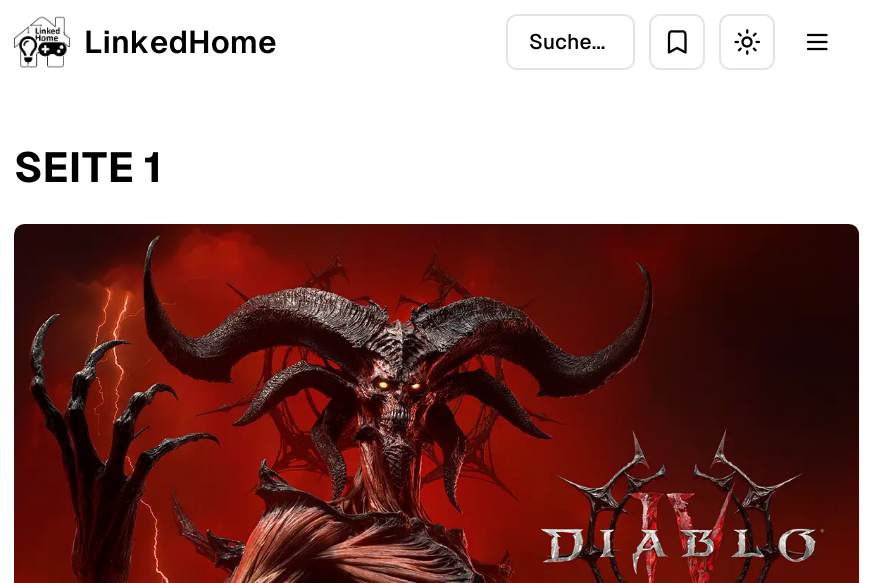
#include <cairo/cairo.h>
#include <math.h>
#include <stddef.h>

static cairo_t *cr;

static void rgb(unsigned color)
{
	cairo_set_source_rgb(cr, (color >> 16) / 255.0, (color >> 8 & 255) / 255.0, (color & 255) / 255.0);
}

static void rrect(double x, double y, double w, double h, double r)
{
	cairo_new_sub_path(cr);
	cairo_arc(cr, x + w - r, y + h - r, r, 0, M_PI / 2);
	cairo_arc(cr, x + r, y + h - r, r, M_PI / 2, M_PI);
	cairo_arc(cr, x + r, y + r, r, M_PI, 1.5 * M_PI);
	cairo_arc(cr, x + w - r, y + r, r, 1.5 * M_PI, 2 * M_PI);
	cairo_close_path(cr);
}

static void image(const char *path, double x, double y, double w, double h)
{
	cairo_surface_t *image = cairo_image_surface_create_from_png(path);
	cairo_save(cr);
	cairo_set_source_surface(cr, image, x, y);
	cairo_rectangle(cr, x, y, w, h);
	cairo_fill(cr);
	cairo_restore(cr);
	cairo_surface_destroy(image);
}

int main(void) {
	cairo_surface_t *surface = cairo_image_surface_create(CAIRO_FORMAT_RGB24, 873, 583);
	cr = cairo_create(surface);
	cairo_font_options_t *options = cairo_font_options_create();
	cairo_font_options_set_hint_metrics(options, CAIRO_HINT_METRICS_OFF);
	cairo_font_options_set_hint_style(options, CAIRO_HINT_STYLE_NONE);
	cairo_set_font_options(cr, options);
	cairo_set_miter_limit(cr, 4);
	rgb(0xffffff);
	cairo_paint(cr);
	image("img/1.png", 14, 16, 56, 52);
	rrect(507, 15, 127, 54, 10);
	rgb(0xe4e4e7);
	cairo_stroke(cr);
	rrect(650, 15, 54, 54, 10);
	cairo_stroke(cr);
	cairo_new_path(cr);
	cairo_move_to(cr, 685.5, 52.5);
	cairo_line_to(cr, 677, 48);
	cairo_line_to(cr, 669, 52.5);
	cairo_line_to(cr, 669, 37);
	cairo_curve_to(cr, 669, 30, 670.5, 31.5, 677, 31.5);
	cairo_curve_to(cr, 684, 31.5, 685.5, 30, 685.5, 37);
	cairo_close_path(cr);
	rgb(0x000000);
	cairo_set_line_width(cr, 2.3);
	cairo_set_line_cap(cr, CAIRO_LINE_CAP_ROUND);
	cairo_set_line_join(cr, CAIRO_LINE_JOIN_ROUND);
	cairo_stroke(cr);
	rrect(720, 15, 54, 54, 10);
	rgb(0xe4e4e7);
	cairo_set_line_width(cr, 2);
	cairo_set_line_cap(cr, CAIRO_LINE_CAP_BUTT);
	cairo_set_line_join(cr, CAIRO_LINE_JOIN_MITER);
	cairo_stroke(cr);
	image("img/2.png", 734, 29, 26, 26);
	cairo_new_path(cr);
	cairo_move_to(cr, 808, 42);
	cairo_line_to(cr, 826.5, 42);
	cairo_move_to(cr, 808, 35);
	cairo_line_to(cr, 826.5, 35);
	cairo_move_to(cr, 808, 49);
	cairo_line_to(cr, 826.5, 49);
	rgb(0x000000);
	cairo_set_line_width(cr, 2.3);
	cairo_set_line_cap(cr, CAIRO_LINE_CAP_ROUND);
	cairo_set_line_join(cr, CAIRO_LINE_JOIN_ROUND);
	cairo_stroke(cr);
	image("img/3.png", 14, 224, 846, 359);
	cairo_select_font_face(cr, "Geist SemiBold", CAIRO_FONT_SLANT_NORMAL, CAIRO_FONT_WEIGHT_NORMAL);
	cairo_set_font_size(cr, 31.5);
	cairo_move_to(cr, 84, 53);
	cairo_show_text(cr, "LinkedHome");
	cairo_select_font_face(cr, "Geist Medium", CAIRO_FONT_SLANT_NORMAL, CAIRO_FONT_WEIGHT_NORMAL);
	cairo_set_font_size(cr, 21);
	cairo_move_to(cr, 529, 49);
	cairo_show_text(cr, "Suche...");
	cairo_select_font_face(cr, "Geist", CAIRO_FONT_SLANT_NORMAL, CAIRO_FONT_WEIGHT_BOLD);
	cairo_set_font_size(cr, 42);
	cairo_move_to(cr, 14, 182);
	cairo_show_text(cr, "SEITE 1");
	cairo_surface_write_to_png(surface, "page.png");
	cairo_font_options_destroy(options);
	cairo_destroy(cr);
	cairo_surface_destroy(surface);
	return 0;
}
